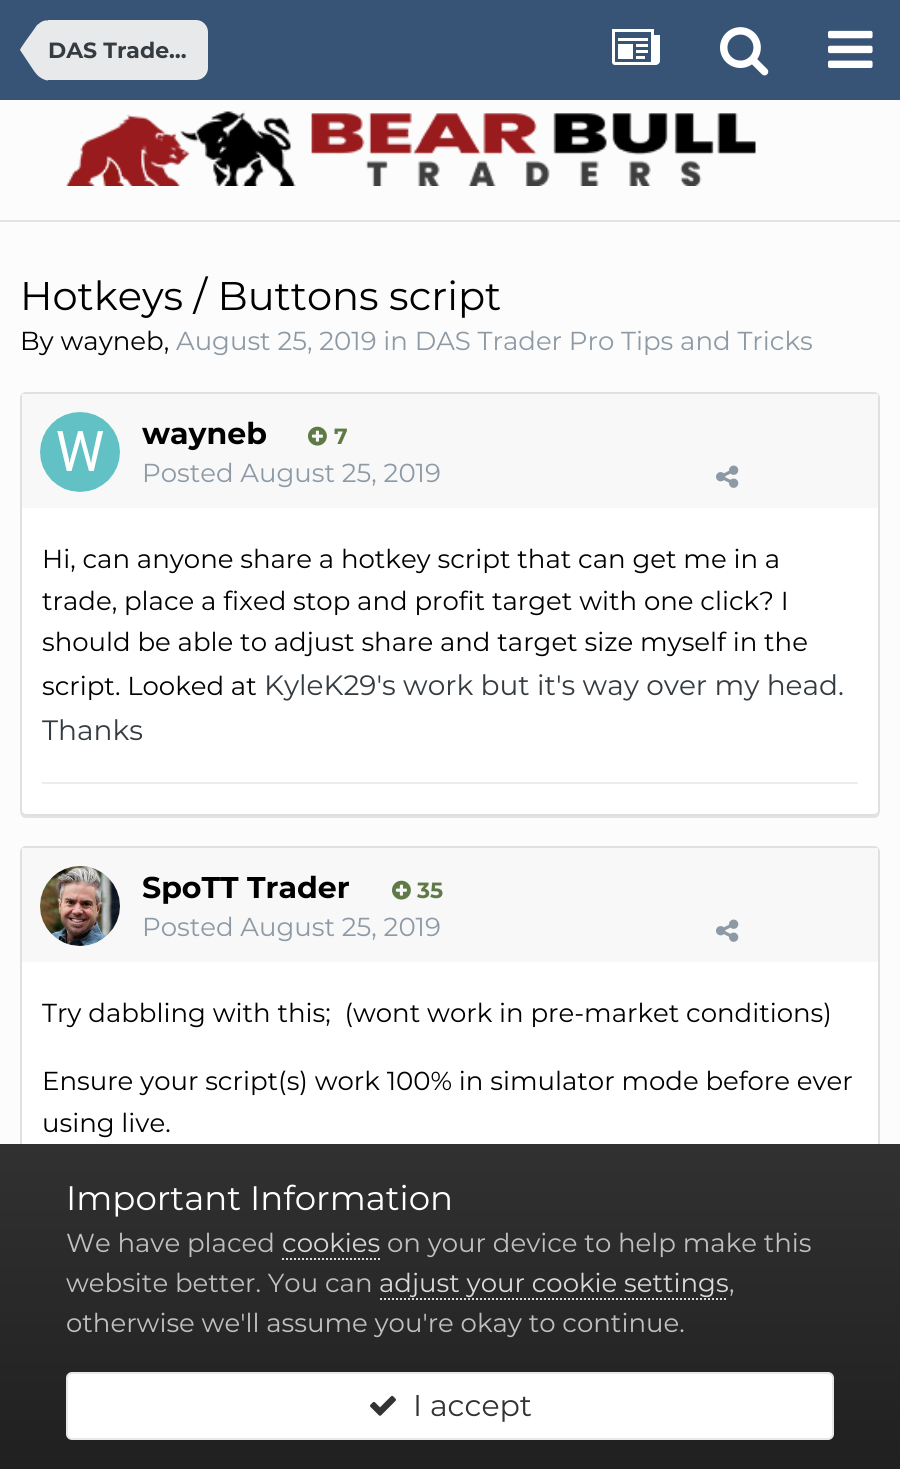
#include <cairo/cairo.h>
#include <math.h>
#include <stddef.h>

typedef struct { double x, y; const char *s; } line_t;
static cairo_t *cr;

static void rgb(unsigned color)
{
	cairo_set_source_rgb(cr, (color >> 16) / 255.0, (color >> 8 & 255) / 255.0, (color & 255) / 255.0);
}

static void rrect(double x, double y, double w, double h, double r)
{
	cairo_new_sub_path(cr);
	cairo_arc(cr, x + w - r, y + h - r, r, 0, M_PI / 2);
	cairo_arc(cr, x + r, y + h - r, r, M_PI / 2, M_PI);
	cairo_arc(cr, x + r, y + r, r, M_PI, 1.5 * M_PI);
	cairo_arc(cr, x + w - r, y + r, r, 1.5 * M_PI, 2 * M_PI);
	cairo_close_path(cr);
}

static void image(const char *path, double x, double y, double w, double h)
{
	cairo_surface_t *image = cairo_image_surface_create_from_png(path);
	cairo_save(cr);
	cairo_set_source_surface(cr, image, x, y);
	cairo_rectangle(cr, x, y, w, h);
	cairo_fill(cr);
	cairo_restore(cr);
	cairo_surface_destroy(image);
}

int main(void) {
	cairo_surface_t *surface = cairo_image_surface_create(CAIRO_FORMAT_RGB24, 900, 1469);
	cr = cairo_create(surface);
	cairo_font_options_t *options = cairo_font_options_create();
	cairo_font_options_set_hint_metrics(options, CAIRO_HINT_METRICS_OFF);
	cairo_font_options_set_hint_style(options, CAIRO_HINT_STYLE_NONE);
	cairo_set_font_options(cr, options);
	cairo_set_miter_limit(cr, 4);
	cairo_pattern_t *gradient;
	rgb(0xfcfcfc);
	cairo_paint(cr);
	rgb(0xe3e3e3);
	cairo_rectangle(cr, 0, 220, 900, 2);
	cairo_fill(cr);
	rgb(0x375476);
	cairo_rectangle(cr, 0, 0, 900, 100);
	cairo_fill(cr);
	rgb(0xe8e9eb);
	cairo_new_path(cr);
	cairo_move_to(cr, 48, 20);
	cairo_line_to(cr, 196, 20);
	cairo_curve_to(cr, 202.5, 20, 208, 25.5, 208, 32);
	cairo_line_to(cr, 208, 68);
	cairo_curve_to(cr, 208, 74.5, 202.5, 80, 196, 80);
	cairo_line_to(cr, 48, 80);
	cairo_close_path(cr);
	cairo_fill(cr);
	cairo_new_path(cr);
	cairo_move_to(cr, 48, 50);
	cairo_line_to(cr, 48, 80.5);
	cairo_curve_to(cr, 43.5, 80, 38.5, 77.5, 34, 71);
	cairo_line_to(cr, 20, 50);
	cairo_close_path(cr);
	cairo_move_to(cr, 48, 50);
	cairo_line_to(cr, 20, 50);
	cairo_curve_to(cr, 20, 48.5, 31, 33.5, 32.5, 31.5);
	cairo_line_to(cr, 37, 25);
	cairo_line_to(cr, 38.5, 24);
	cairo_curve_to(cr, 41, 21.5, 44.5, 20, 48, 20.5);
	cairo_close_path(cr);
	cairo_fill(cr);
	image("img/1.png", 612, 29, 48, 36);
	image("img/2.png", 720, 27, 49, 49);
	image("img/3.png", 828, 30, 45, 38);
	image("img/4.png", 66, 111, 690, 75);
	rgb(0xe3e3e3);
	cairo_new_path(cr);
	cairo_move_to(cr, 20, 810);
	cairo_curve_to(cr, 20, 814, 21, 818, 26, 818);
	cairo_line_to(cr, 874, 818);
	cairo_curve_to(cr, 879, 818, 880, 814, 880, 810);
	cairo_curve_to(cr, 880, 813, 877, 816, 874, 816);
	cairo_line_to(cr, 26, 816);
	cairo_curve_to(cr, 23, 816, 20, 813, 20, 810);
	cairo_close_path(cr);
	cairo_fill(cr);
	rgb(0xffffff);
	rrect(21, 393, 858, 422, 5);
	cairo_fill_preserve(cr);
	rgb(0xe0e0e0);
	cairo_stroke(cr);
	rgb(0xf8f8f8);
	cairo_rectangle(cr, 22, 394, 856, 114);
	cairo_fill(cr);
	rgb(0xffffff);
	cairo_arc(cr, 80, 452, 40, 0, 2 * M_PI);
	cairo_fill(cr);
	image("img/5.png", 40, 412, 80, 80);
	image("img/6.png", 308, 426, 19, 20);
	image("img/7.png", 716, 465, 23, 23);
	rgb(0xececec);
	cairo_rectangle(cr, 42, 782, 816, 2);
	cairo_fill(cr);
	rgb(0xffffff);
	rrect(21, 847, 858, 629, 5);
	cairo_fill_preserve(cr);
	rgb(0xe0e0e0);
	cairo_stroke(cr);
	rgb(0xf8f8f8);
	cairo_rectangle(cr, 22, 848, 856, 114);
	cairo_fill(cr);
	rgb(0xffffff);
	cairo_arc(cr, 80, 906, 40, 0, 2 * M_PI);
	cairo_fill(cr);
	image("img/8.png", 40, 866, 80, 80);
	image("img/6.png", 392, 880, 19, 20);
	image("img/7.png", 716, 919, 23, 23);
	gradient = cairo_pattern_create_linear(450, 1144, 450, 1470);
	cairo_pattern_add_color_stop_rgba(gradient, 0, 0.192, 0.192, 0.192, 1);
	cairo_pattern_add_color_stop_rgba(gradient, 1, 0.125, 0.125, 0.125, 1);
	cairo_set_source(cr, gradient);
	cairo_pattern_destroy(gradient);
	cairo_rectangle(cr, 0, 1144, 900, 325);
	cairo_fill(cr);
	cairo_new_path(cr);
	cairo_move_to(cr, 282, 1259);
	cairo_line_to(cr, 380, 1259);
	rgb(0xdadada);
	cairo_set_dash(cr, (double[]){2, 2}, 2, 0);
	cairo_stroke(cr);
	cairo_new_path(cr);
	cairo_move_to(cr, 380, 1299);
	cairo_line_to(cr, 728, 1299);
	cairo_stroke(cr);
	rgb(0xffffff);
	rrect(67, 1373, 766, 66, 5);
	cairo_fill_preserve(cr);
	rgb(0xe8e8e8);
	cairo_set_dash(cr, NULL, 0, 0);
	cairo_stroke(cr);
	image("img/9.png", 370, 1395, 26, 21);
	cairo_select_font_face(cr, "Montserrat", CAIRO_FONT_SLANT_NORMAL, CAIRO_FONT_WEIGHT_BOLD);
	cairo_set_font_size(cr, 22);
	rgb(0x353c41);
	cairo_move_to(cr, 48, 58);
	cairo_show_text(cr, "DAS Trade…");
	cairo_select_font_face(cr, "Montserrat", CAIRO_FONT_SLANT_NORMAL, CAIRO_FONT_WEIGHT_NORMAL);
	cairo_set_font_size(cr, 40);
	rgb(0x000000);
	cairo_move_to(cr, 20, 310);
	cairo_show_text(cr, "Hotkeys / Buttons script");
	cairo_set_font_size(cr, 26);
	cairo_move_to(cr, 20, 350);
	cairo_show_text(cr, "By wayneb,");
	rgb(0x8d9aa6);
	cairo_move_to(cr, 176, 350);
	cairo_show_text(cr, "August 25, 2019 in DAS Trader Pro Tips and Tricks");
	cairo_select_font_face(cr, "Montserrat", CAIRO_FONT_SLANT_NORMAL, CAIRO_FONT_WEIGHT_BOLD);
	cairo_set_font_size(cr, 30);
	rgb(0x000000);
	cairo_move_to(cr, 142, 444);
	cairo_show_text(cr, "wayneb");
	cairo_set_font_size(cr, 22);
	rgb(0x5f7a47);
	cairo_move_to(cr, 334, 444);
	cairo_show_text(cr, "7");
	cairo_select_font_face(cr, "Montserrat", CAIRO_FONT_SLANT_NORMAL, CAIRO_FONT_WEIGHT_NORMAL);
	cairo_set_font_size(cr, 26);
	rgb(0x8d9aa6);
	cairo_move_to(cr, 142, 482);
	cairo_show_text(cr, "Posted August 25, 2019");
	rgb(0x000000);
	{
		static const line_t items[] = {
			{42, 568, "Hi, can anyone share a hotkey script that can get me in a"},
			{42, 610, "trade, place a fixed stop and profit target with one click? I"},
			{42, 651, "should be able to adjust share and target size myself in the"},
			{42, 695, "script. Looked at"},
		};
		for (size_t i = 0; i < sizeof items / sizeof *items; i++) {
			cairo_move_to(cr, items[i].x, items[i].y);
			cairo_show_text(cr, items[i].s);
		}
	}
	cairo_set_font_size(cr, 28);
	rgb(0x353c41);
	cairo_move_to(cr, 264, 695);
	cairo_show_text(cr, "KyleK29's work but it's way over my head.");
	cairo_move_to(cr, 42, 740);
	cairo_show_text(cr, "Thanks");
	cairo_select_font_face(cr, "Montserrat", CAIRO_FONT_SLANT_NORMAL, CAIRO_FONT_WEIGHT_BOLD);
	cairo_set_font_size(cr, 30);
	rgb(0x000000);
	cairo_move_to(cr, 142, 898);
	cairo_show_text(cr, "SpoTT Trader");
	cairo_set_font_size(cr, 22);
	rgb(0x5f7a47);
	cairo_move_to(cr, 417, 898);
	cairo_show_text(cr, "35");
	cairo_select_font_face(cr, "Montserrat", CAIRO_FONT_SLANT_NORMAL, CAIRO_FONT_WEIGHT_NORMAL);
	cairo_set_font_size(cr, 26);
	rgb(0x8d9aa6);
	cairo_move_to(cr, 142, 936);
	cairo_show_text(cr, "Posted August 25, 2019");
	rgb(0x000000);
	{
		static const line_t items[] = {
			{42, 1022, "Try dabbling with this;  (wont work in pre-market conditions)"},
			{42, 1090, "Ensure your script(s) work 100% in simulator mode before ever"},
			{42, 1132, "using live."},
		};
		for (size_t i = 0; i < sizeof items / sizeof *items; i++) {
			cairo_move_to(cr, items[i].x, items[i].y);
			cairo_show_text(cr, items[i].s);
		}
	}
	cairo_set_font_size(cr, 34);
	rgb(0xffffff);
	cairo_move_to(cr, 66, 1210);
	cairo_show_text(cr, "Important Information");
	cairo_set_font_size(cr, 26);
	rgb(0xc0c0c0);
	cairo_move_to(cr, 66, 1252);
	cairo_show_text(cr, "We have placed");
	rgb(0xdadada);
	cairo_move_to(cr, 282, 1252);
	cairo_show_text(cr, "cookies");
	rgb(0xc0c0c0);
	cairo_move_to(cr, 387, 1252);
	cairo_show_text(cr, "on your device to help make this");
	cairo_move_to(cr, 66, 1292);
	cairo_show_text(cr, "website better. You can");
	rgb(0xdadada);
	cairo_move_to(cr, 379, 1292);
	cairo_show_text(cr, "adjust your cookie settings");
	rgb(0xc0c0c0);
	cairo_move_to(cr, 729, 1292);
	cairo_show_text(cr, ",");
	cairo_move_to(cr, 66, 1332);
	cairo_show_text(cr, "otherwise we'll assume you're okay to continue.");
	cairo_set_font_size(cr, 30);
	rgb(0x333333);
	cairo_move_to(cr, 413, 1416);
	cairo_show_text(cr, "I accept");
	cairo_surface_write_to_png(surface, "page.png");
	cairo_font_options_destroy(options);
	cairo_destroy(cr);
	cairo_surface_destroy(surface);
	return 0;
}
